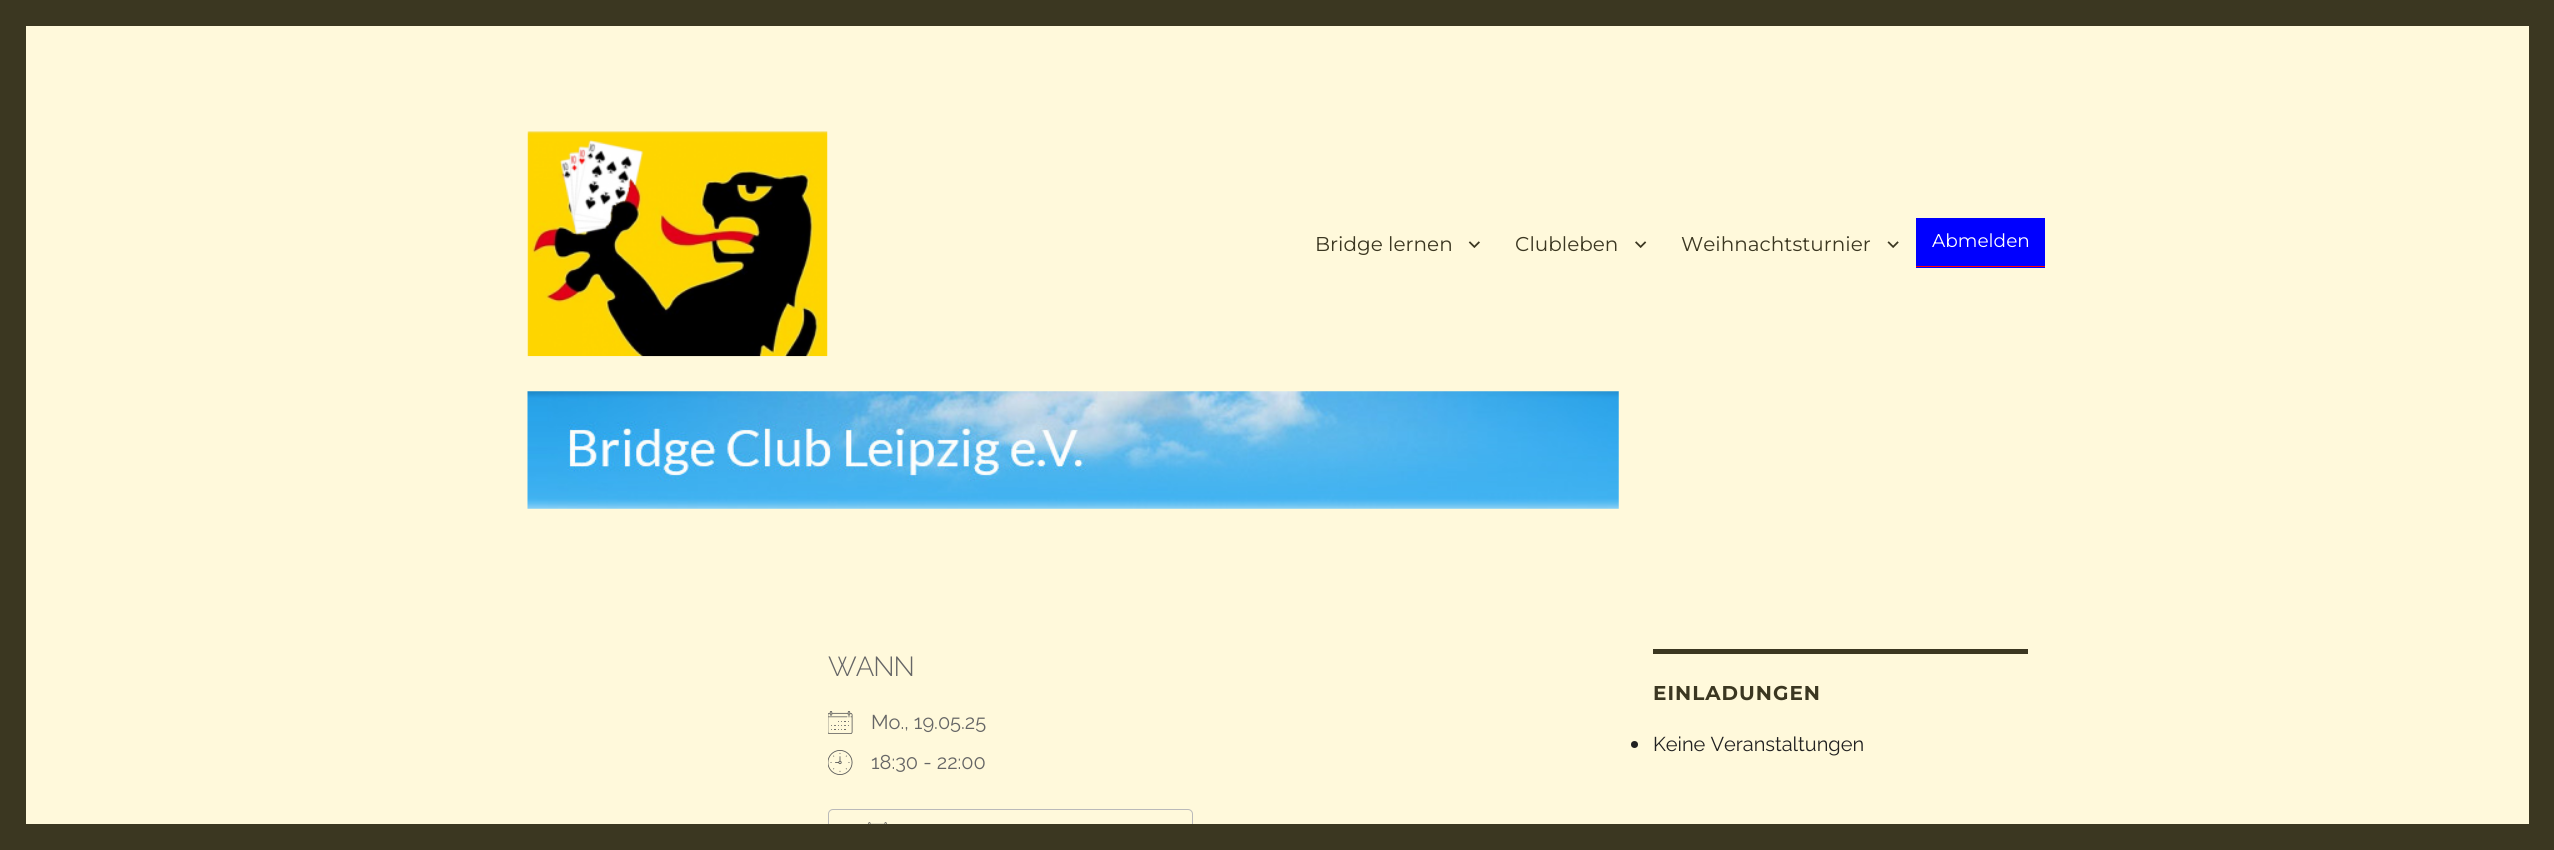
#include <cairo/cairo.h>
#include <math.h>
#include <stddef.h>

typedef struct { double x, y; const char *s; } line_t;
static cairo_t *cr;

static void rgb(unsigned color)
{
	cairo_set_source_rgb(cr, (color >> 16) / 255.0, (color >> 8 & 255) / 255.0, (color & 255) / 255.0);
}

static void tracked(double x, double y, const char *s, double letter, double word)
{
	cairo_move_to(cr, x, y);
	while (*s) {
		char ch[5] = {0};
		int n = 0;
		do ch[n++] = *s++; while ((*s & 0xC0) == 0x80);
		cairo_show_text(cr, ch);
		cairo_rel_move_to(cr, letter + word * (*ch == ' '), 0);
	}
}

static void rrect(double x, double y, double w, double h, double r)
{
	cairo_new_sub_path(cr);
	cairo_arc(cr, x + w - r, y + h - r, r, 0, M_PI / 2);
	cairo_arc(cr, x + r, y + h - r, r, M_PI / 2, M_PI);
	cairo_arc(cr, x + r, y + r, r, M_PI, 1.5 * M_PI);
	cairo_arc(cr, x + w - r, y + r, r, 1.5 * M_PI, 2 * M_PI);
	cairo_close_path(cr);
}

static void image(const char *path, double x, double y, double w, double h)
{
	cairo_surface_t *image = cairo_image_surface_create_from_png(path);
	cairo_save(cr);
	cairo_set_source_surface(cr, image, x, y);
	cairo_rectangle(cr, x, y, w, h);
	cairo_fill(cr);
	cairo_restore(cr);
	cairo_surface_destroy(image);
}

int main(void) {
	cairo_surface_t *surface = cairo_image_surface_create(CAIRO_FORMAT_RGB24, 2554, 850);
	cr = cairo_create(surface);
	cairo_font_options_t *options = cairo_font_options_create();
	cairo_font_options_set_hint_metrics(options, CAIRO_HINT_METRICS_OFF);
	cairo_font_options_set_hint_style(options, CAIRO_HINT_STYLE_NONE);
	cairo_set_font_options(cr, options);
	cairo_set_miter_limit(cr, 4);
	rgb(0x3b3721);
	cairo_paint(cr);
	rgb(0xfff9db);
	cairo_rectangle(cr, 26, 26, 2503, 798);
	cairo_fill(cr);
	image("img/1.png", 527, 131, 301, 226);
	image("img/2.png", 1468, 241, 12, 7);
	image("img/3.png", 1635, 241, 12, 7);
	image("img/4.png", 1887, 241, 12, 7);
	rgb(0x0000ff);
	cairo_rectangle(cr, 1916, 218, 129, 50);
	cairo_fill(cr);
	rgb(0xff0000);
	cairo_rectangle(cr, 1916, 266, 129, 1);
	cairo_fill(cr);
	image("img/5.png", 527, 391, 1092, 118);
	image("img/6.png", 828, 711, 25, 23);
	image("img/7.png", 828, 750, 25, 25);
	rrect(828.5, 809.5, 364, 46, 4.5);
	rgb(0xbababa);
	cairo_set_line_width(cr, 1);
	cairo_stroke(cr);
	image("img/8.png", 867, 822, 21, 2);
	rgb(0x3b3721);
	cairo_rectangle(cr, 1653, 649, 375, 5);
	cairo_fill(cr);
	rgb(0x212121);
	cairo_arc(cr, 1634.5, 744.5, 3.5, 0, 2 * M_PI);
	cairo_fill(cr);
	rgb(0x3b3721);
	cairo_rectangle(cr, 828, 824, 365, 26);
	cairo_fill(cr);
	cairo_select_font_face(cr, "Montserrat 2 Thin", CAIRO_FONT_SLANT_NORMAL, CAIRO_FONT_WEIGHT_NORMAL);
	cairo_set_font_size(cr, 20);
	{
		static const line_t items[] = {
			{1315, 251, "Bridge lernen"},
			{1515, 251, "Clubleben"},
			{1681, 251, "Weihnachtsturnier"},
		};
		for (size_t i = 0; i < sizeof items / sizeof *items; i++) {
			cairo_move_to(cr, items[i].x, items[i].y);
			cairo_show_text(cr, items[i].s);
		}
	}
	cairo_set_font_size(cr, 18.5);
	rgb(0xffffff);
	cairo_move_to(cr, 1932, 247);
	cairo_show_text(cr, "Abmelden");
	cairo_select_font_face(cr, "Raleway Light", CAIRO_FONT_SLANT_NORMAL, CAIRO_FONT_WEIGHT_NORMAL);
	cairo_set_font_size(cr, 27.5);
	rgb(0x666666);
	tracked(828, 676, "WANN", -1, 0);
	cairo_select_font_face(cr, "Raleway", CAIRO_FONT_SLANT_NORMAL, CAIRO_FONT_WEIGHT_NORMAL);
	cairo_set_font_size(cr, 20);
	cairo_move_to(cr, 871, 729);
	cairo_show_text(cr, "Mo., 19.05.25");
	cairo_move_to(cr, 871, 769);
	cairo_show_text(cr, "18:30 - 22:00");
	cairo_select_font_face(cr, "Montserrat Thin", CAIRO_FONT_SLANT_NORMAL, CAIRO_FONT_WEIGHT_NORMAL);
	rgb(0x3b3721);
	tracked(1653, 700, "EINLADUNGEN", 1, 0);
	cairo_select_font_face(cr, "Raleway", CAIRO_FONT_SLANT_NORMAL, CAIRO_FONT_WEIGHT_NORMAL);
	rgb(0x212121);
	cairo_move_to(cr, 1653, 751);
	cairo_show_text(cr, "Keine Veranstaltungen");
	cairo_surface_write_to_png(surface, "page.png");
	cairo_font_options_destroy(options);
	cairo_destroy(cr);
	cairo_surface_destroy(surface);
	return 0;
}
